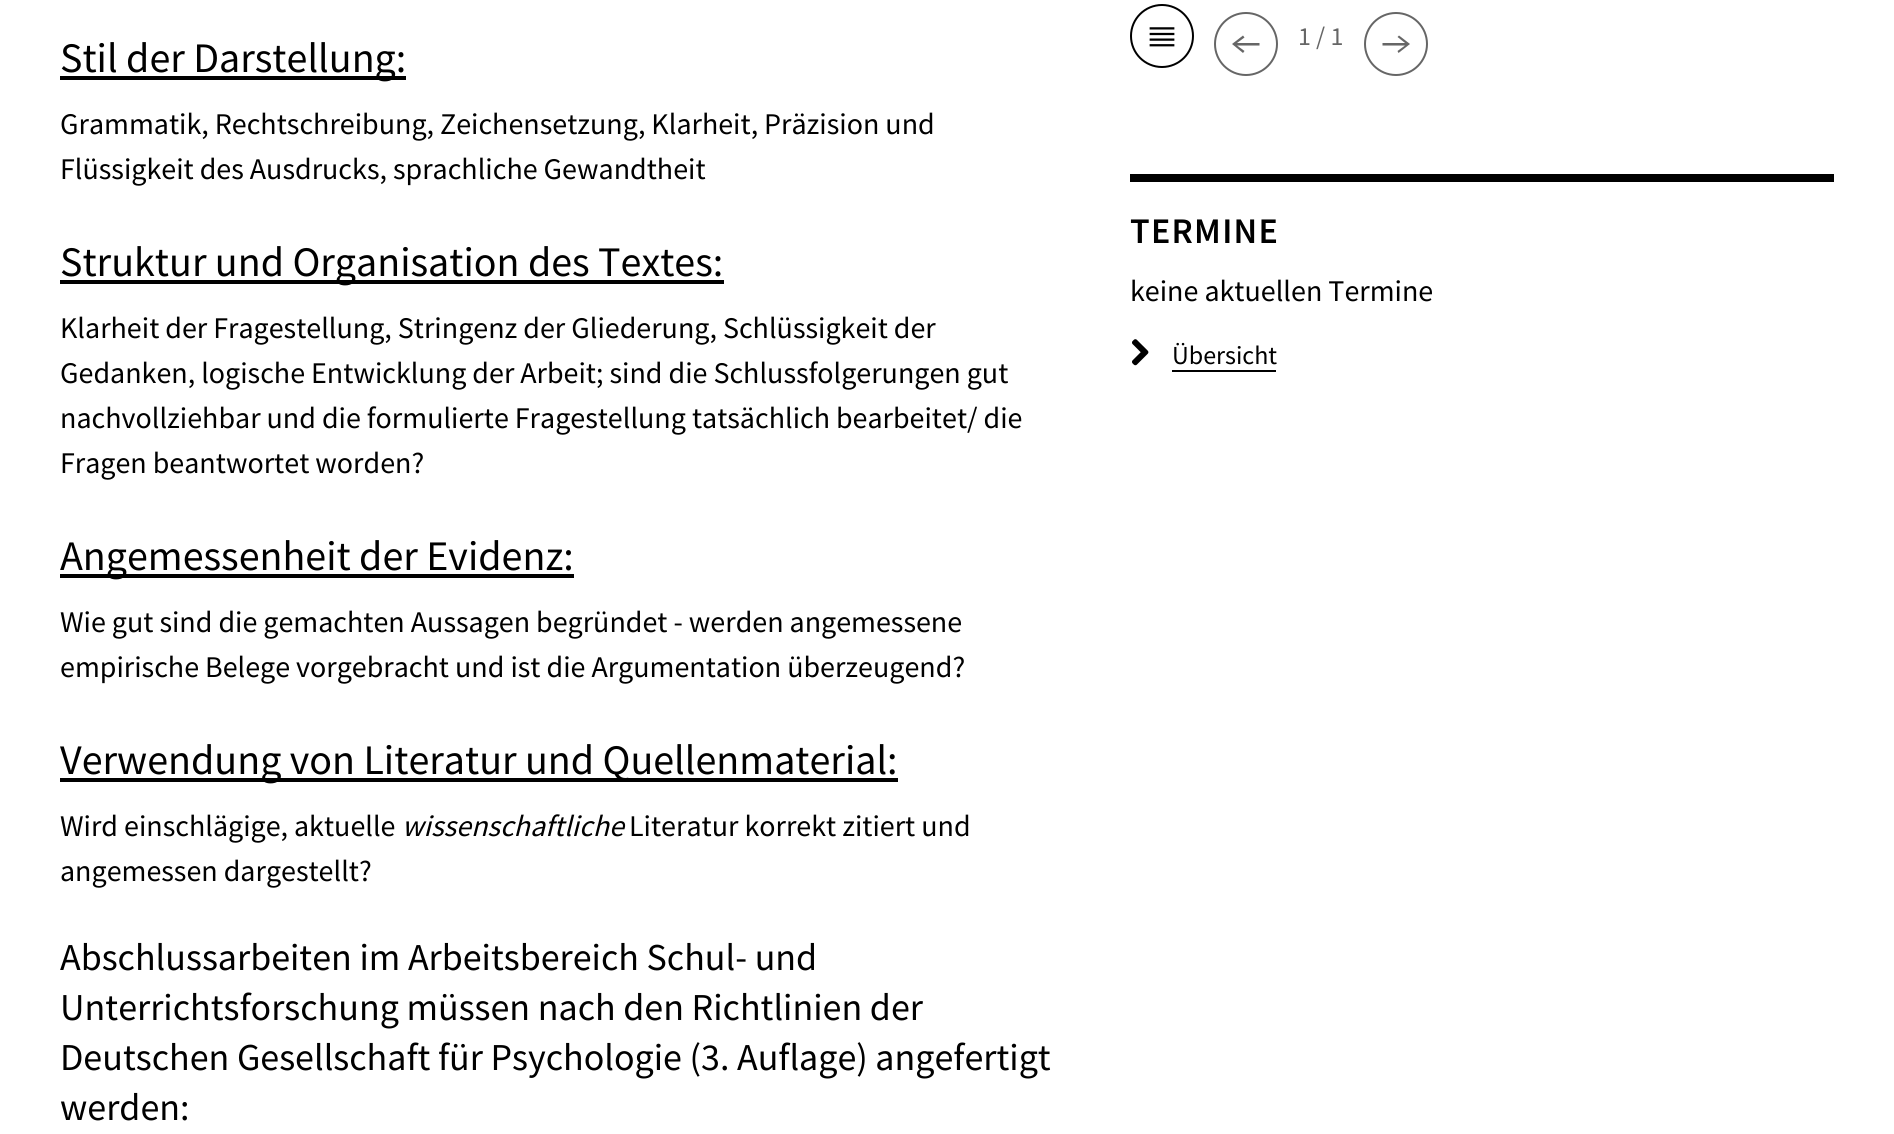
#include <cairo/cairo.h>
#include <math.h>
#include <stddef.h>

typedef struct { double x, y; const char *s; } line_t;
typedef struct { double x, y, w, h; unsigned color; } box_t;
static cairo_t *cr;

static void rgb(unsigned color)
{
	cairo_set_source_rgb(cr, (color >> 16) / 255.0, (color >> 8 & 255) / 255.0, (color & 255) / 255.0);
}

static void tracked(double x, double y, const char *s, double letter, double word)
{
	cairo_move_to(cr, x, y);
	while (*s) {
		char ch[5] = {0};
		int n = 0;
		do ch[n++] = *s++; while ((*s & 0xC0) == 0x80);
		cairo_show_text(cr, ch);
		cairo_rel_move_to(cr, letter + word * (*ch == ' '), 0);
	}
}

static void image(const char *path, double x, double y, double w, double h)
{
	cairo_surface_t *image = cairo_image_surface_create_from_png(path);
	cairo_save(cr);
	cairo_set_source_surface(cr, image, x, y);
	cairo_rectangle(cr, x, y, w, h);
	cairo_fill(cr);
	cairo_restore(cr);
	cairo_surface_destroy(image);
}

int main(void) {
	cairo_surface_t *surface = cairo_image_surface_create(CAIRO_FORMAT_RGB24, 1894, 1134);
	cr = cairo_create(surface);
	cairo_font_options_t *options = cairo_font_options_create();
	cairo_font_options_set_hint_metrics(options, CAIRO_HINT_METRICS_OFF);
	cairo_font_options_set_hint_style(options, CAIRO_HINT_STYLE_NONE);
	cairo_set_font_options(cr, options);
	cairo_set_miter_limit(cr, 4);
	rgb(0xffffff);
	cairo_paint(cr);
	{
		static const box_t items[] = {
			{60, 76, 346, 4, 0x000000},
			{60, 280, 664, 4, 0x000000},
			{60, 574, 514, 4, 0x000000},
			{60, 778, 838, 4, 0x000000},
		};
		for (size_t i = 0; i < sizeof items / sizeof *items; i++) {
			rgb(items[i].color);
			cairo_rectangle(cr, items[i].x, items[i].y, items[i].w, items[i].h);
			cairo_fill(cr);
		}
	}
	cairo_arc(cr, 1162, 36, 31, 0, 2 * M_PI);
	cairo_stroke(cr);
	image("img/1.png", 1149, 27, 26, 20);
	cairo_arc(cr, 1246, 44, 31, 0, 2 * M_PI);
	rgb(0x666666);
	cairo_stroke(cr);
	cairo_new_path(cr);
	cairo_move_to(cr, 1259.5, 43);
	cairo_line_to(cr, 1237, 43);
	cairo_line_to(cr, 1244.5, 37.5);
	cairo_line_to(cr, 1243, 35.5);
	cairo_line_to(cr, 1232, 44);
	cairo_line_to(cr, 1243, 53);
	cairo_line_to(cr, 1244.5, 51);
	cairo_line_to(cr, 1237, 45.5);
	cairo_line_to(cr, 1259.5, 45.5);
	cairo_close_path(cr);
	cairo_fill(cr);
	cairo_arc(cr, 1396, 44, 31, 0, 2 * M_PI);
	cairo_stroke(cr);
	cairo_new_path(cr);
	cairo_move_to(cr, 1399, 35.5);
	cairo_line_to(cr, 1397.5, 37);
	cairo_line_to(cr, 1405, 43);
	cairo_line_to(cr, 1382.5, 43);
	cairo_line_to(cr, 1382.5, 45.5);
	cairo_line_to(cr, 1405, 45.5);
	cairo_line_to(cr, 1397.5, 51);
	cairo_line_to(cr, 1398.5, 53);
	cairo_line_to(cr, 1410, 44);
	cairo_close_path(cr);
	cairo_fill(cr);
	rgb(0x000000);
	cairo_rectangle(cr, 1130, 174, 704, 8);
	cairo_fill(cr);
	image("img/2.png", 1132, 339, 17, 27);
	cairo_rectangle(cr, 1172, 370, 104, 2);
	cairo_fill(cr);
	cairo_select_font_face(cr, "Source Sans Pro", CAIRO_FONT_SLANT_NORMAL, CAIRO_FONT_WEIGHT_NORMAL);
	cairo_set_font_size(cr, 42);
	cairo_move_to(cr, 60, 72);
	cairo_show_text(cr, "Stil der Darstellung:");
	cairo_set_font_size(cr, 30);
	cairo_move_to(cr, 60, 134);
	cairo_show_text(cr, "Grammatik, Rechtschreibung, Zeichensetzung, Klarheit, Präzision und");
	cairo_move_to(cr, 60, 179);
	cairo_show_text(cr, "Flüssigkeit des Ausdrucks, sprachliche Gewandtheit");
	cairo_set_font_size(cr, 42);
	cairo_move_to(cr, 60, 276);
	cairo_show_text(cr, "Struktur und Organisation des Textes:");
	cairo_set_font_size(cr, 30);
	{
		static const line_t items[] = {
			{60, 338, "Klarheit der Fragestellung, Stringenz der Gliederung, Schlüssigkeit der"},
			{60, 383, "Gedanken, logische Entwicklung der Arbeit; sind die Schlussfolgerungen gut"},
			{60, 428, "nachvollziehbar und die formulierte Fragestellung tatsächlich bearbeitet/ die"},
			{60, 473, "Fragen beantwortet worden?"},
		};
		for (size_t i = 0; i < sizeof items / sizeof *items; i++) {
			cairo_move_to(cr, items[i].x, items[i].y);
			cairo_show_text(cr, items[i].s);
		}
	}
	cairo_set_font_size(cr, 42);
	cairo_move_to(cr, 60, 570);
	cairo_show_text(cr, "Angemessenheit der Evidenz:");
	cairo_set_font_size(cr, 30);
	cairo_move_to(cr, 60, 632);
	cairo_show_text(cr, "Wie gut sind die gemachten Aussagen begründet - werden angemessene");
	cairo_move_to(cr, 60, 677);
	cairo_show_text(cr, "empirische Belege vorgebracht und ist die Argumentation überzeugend?");
	cairo_set_font_size(cr, 42);
	cairo_move_to(cr, 60, 774);
	cairo_show_text(cr, "Verwendung von Literatur und Quellenmaterial:");
	cairo_set_font_size(cr, 30);
	cairo_move_to(cr, 60, 836);
	cairo_show_text(cr, "Wird einschlägige, aktuelle");
	cairo_select_font_face(cr, "Source Sans Pro", CAIRO_FONT_SLANT_ITALIC, CAIRO_FONT_WEIGHT_NORMAL);
	cairo_move_to(cr, 402, 836);
	cairo_show_text(cr, "wissenschaftliche");
	cairo_select_font_face(cr, "Source Sans Pro", CAIRO_FONT_SLANT_NORMAL, CAIRO_FONT_WEIGHT_NORMAL);
	cairo_move_to(cr, 629, 836);
	cairo_show_text(cr, "Literatur korrekt zitiert und");
	cairo_move_to(cr, 60, 881);
	cairo_show_text(cr, "angemessen dargestellt?");
	cairo_set_font_size(cr, 38);
	{
		static const line_t items[] = {
			{60, 970, "Abschlussarbeiten im Arbeitsbereich Schul- und"},
			{60, 1020, "Unterrichtsforschung müssen nach den Richtlinien der"},
			{60, 1070, "Deutschen Gesellschaft für Psychologie (3. Auflage) angefertigt"},
			{60, 1120, "werden:"},
		};
		for (size_t i = 0; i < sizeof items / sizeof *items; i++) {
			cairo_move_to(cr, items[i].x, items[i].y);
			cairo_show_text(cr, items[i].s);
		}
	}
	cairo_set_font_size(cr, 26);
	rgb(0x666666);
	cairo_move_to(cr, 1298, 45);
	cairo_show_text(cr, "1 / 1");
	cairo_select_font_face(cr, "Source Sans Pro SemiBold", CAIRO_FONT_SLANT_NORMAL, CAIRO_FONT_WEIGHT_NORMAL);
	cairo_set_font_size(cr, 36);
	rgb(0x000000);
	tracked(1130, 243, "TERMINE", 1.25, 0);
	cairo_select_font_face(cr, "Source Sans Pro", CAIRO_FONT_SLANT_NORMAL, CAIRO_FONT_WEIGHT_NORMAL);
	cairo_set_font_size(cr, 30);
	cairo_move_to(cr, 1130, 301);
	cairo_show_text(cr, "keine aktuellen Termine");
	cairo_set_font_size(cr, 26);
	cairo_move_to(cr, 1172, 364);
	cairo_show_text(cr, "Übersicht");
	cairo_surface_write_to_png(surface, "page.png");
	cairo_font_options_destroy(options);
	cairo_destroy(cr);
	cairo_surface_destroy(surface);
	return 0;
}
